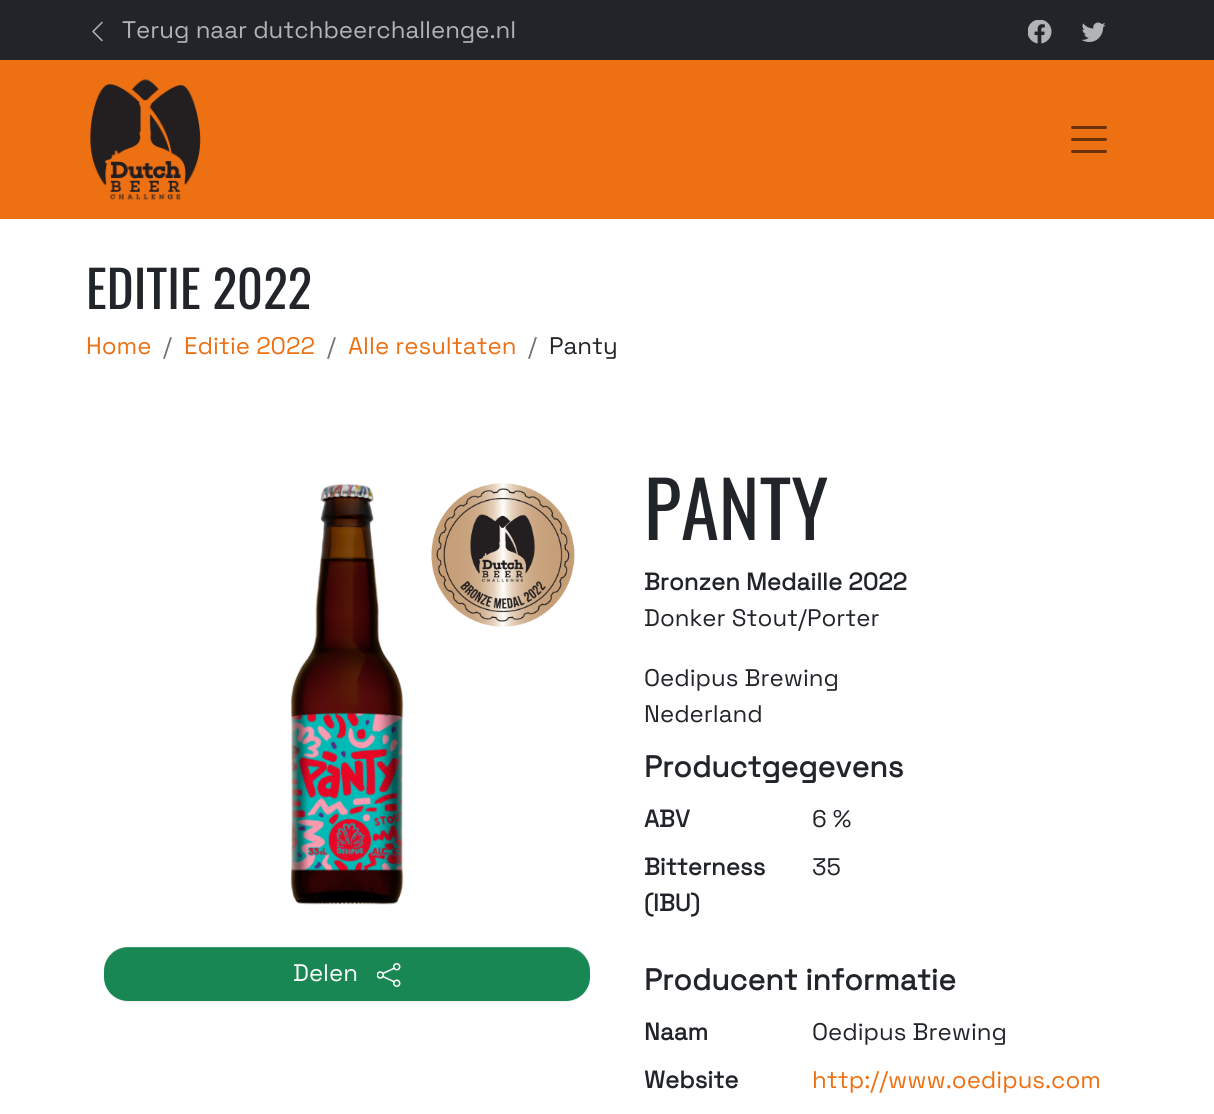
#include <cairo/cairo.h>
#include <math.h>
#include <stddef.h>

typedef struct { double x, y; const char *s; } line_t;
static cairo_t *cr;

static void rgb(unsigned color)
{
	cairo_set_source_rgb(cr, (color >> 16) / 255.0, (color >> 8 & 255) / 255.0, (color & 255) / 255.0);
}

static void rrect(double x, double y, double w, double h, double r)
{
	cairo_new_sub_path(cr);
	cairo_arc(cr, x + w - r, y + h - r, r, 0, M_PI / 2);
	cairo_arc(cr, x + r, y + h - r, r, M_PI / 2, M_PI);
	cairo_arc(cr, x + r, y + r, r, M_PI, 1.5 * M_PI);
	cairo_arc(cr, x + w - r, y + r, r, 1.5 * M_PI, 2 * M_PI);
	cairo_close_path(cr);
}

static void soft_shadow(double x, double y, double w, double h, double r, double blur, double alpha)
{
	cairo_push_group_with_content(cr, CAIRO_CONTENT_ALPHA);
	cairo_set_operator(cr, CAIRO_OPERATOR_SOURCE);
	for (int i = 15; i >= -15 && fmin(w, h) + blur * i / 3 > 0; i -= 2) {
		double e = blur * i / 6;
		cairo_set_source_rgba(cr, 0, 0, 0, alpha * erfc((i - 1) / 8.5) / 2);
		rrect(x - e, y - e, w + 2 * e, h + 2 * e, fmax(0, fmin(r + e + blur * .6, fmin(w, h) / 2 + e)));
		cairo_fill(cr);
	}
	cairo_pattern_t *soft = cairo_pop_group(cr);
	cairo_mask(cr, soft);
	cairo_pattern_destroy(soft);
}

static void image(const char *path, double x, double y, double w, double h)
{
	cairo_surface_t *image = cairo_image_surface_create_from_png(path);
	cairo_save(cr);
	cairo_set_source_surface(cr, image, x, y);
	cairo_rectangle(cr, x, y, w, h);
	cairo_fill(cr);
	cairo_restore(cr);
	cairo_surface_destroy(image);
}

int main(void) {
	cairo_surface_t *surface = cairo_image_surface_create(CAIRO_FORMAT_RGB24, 1214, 1114);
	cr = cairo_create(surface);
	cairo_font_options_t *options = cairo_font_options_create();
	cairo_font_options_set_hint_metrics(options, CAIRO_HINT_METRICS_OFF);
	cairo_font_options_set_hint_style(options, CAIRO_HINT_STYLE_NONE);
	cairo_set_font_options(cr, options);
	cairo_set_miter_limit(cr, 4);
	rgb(0x212529);
	cairo_paint(cr);
	image("img/1.png", 92, 21, 11, 21);
	image("img/2.png", 1028, 20, 24, 24);
	image("img/3.png", 1082, 22, 24, 20);
	rgb(0xed7013);
	cairo_rectangle(cr, 0, 60, 1214, 159);
	cairo_fill(cr);
	image("img/4.png", 90, 79, 111, 121);
	cairo_new_path(cr);
	cairo_move_to(cr, 1072.5, 127.5);
	cairo_line_to(cr, 1105.5, 127.5);
	cairo_move_to(cr, 1072.5, 139.5);
	cairo_line_to(cr, 1105.5, 139.5);
	cairo_move_to(cr, 1072.5, 151.5);
	cairo_line_to(cr, 1105.5, 151.5);
	rgb(0x6b3209);
	cairo_set_line_width(cr, 3);
	cairo_set_line_cap(cr, CAIRO_LINE_CAP_ROUND);
	cairo_stroke(cr);
	rgb(0xffffff);
	cairo_rectangle(cr, 0, 219, 1214, 895);
	cairo_fill(cr);
	image("img/5.png", 290, 483, 114, 422);
	image("img/6.png", 431, 483, 144, 144);
	rgb(0x000000);
	soft_shadow(104, 948, 486, 54, 24, 1, 0.07);
	rgb(0x198754);
	rrect(104, 947, 486, 54, 24);
	cairo_fill(cr);
	cairo_set_source_rgba(cr, 1, 1, 1, 0.15);
	cairo_new_path(cr);
	cairo_move_to(cr, 128, 948);
	cairo_line_to(cr, 566, 948);
	cairo_curve_to(cr, 579, 948, 590, 959, 590, 972);
	cairo_line_to(cr, 590, 971);
	cairo_curve_to(cr, 590, 958, 579, 947, 566, 947);
	cairo_line_to(cr, 128, 947);
	cairo_curve_to(cr, 115, 947, 104, 958, 104, 971);
	cairo_line_to(cr, 104, 972);
	cairo_curve_to(cr, 104, 959, 114, 948, 128, 948);
	cairo_close_path(cr);
	cairo_fill(cr);
	image("img/7.png", 377, 963, 24, 24);
	cairo_select_font_face(cr, "Space Grotesk", CAIRO_FONT_SLANT_NORMAL, CAIRO_FONT_WEIGHT_NORMAL);
	cairo_set_font_size(cr, 24);
	rgb(0xb1b3b4);
	cairo_move_to(cr, 122, 38);
	cairo_show_text(cr, "Terug naar dutchbeerchallenge.nl");
	cairo_select_font_face(cr, "Oswald", CAIRO_FONT_SLANT_NORMAL, CAIRO_FONT_WEIGHT_NORMAL);
	cairo_set_font_size(cr, 51);
	rgb(0x212529);
	cairo_move_to(cr, 86, 309);
	cairo_show_text(cr, "EDITIE 2022");
	cairo_select_font_face(cr, "Space Grotesk", CAIRO_FONT_SLANT_NORMAL, CAIRO_FONT_WEIGHT_NORMAL);
	cairo_set_font_size(cr, 24);
	rgb(0xed7013);
	cairo_move_to(cr, 86, 354);
	cairo_show_text(cr, "Home");
	rgb(0x6c757d);
	cairo_move_to(cr, 163, 354);
	cairo_show_text(cr, "/");
	rgb(0xed7013);
	cairo_move_to(cr, 184, 354);
	cairo_show_text(cr, "Editie 2022");
	rgb(0x6c757d);
	cairo_move_to(cr, 327, 354);
	cairo_show_text(cr, "/");
	rgb(0xed7013);
	cairo_move_to(cr, 348, 354);
	cairo_show_text(cr, "Alle resultaten");
	rgb(0x6c757d);
	cairo_move_to(cr, 528, 354);
	cairo_show_text(cr, "/");
	rgb(0x212529);
	cairo_move_to(cr, 549, 354);
	cairo_show_text(cr, "Panty");
	rgb(0xffffff);
	cairo_move_to(cr, 293, 981);
	cairo_show_text(cr, "Delen");
	cairo_select_font_face(cr, "Oswald", CAIRO_FONT_SLANT_NORMAL, CAIRO_FONT_WEIGHT_NORMAL);
	cairo_set_font_size(cr, 77);
	rgb(0x212529);
	cairo_move_to(cr, 644, 540);
	cairo_show_text(cr, "PANTY");
	cairo_select_font_face(cr, "Space Grotesk", CAIRO_FONT_SLANT_NORMAL, CAIRO_FONT_WEIGHT_BOLD);
	cairo_set_font_size(cr, 24);
	cairo_move_to(cr, 644, 590);
	cairo_show_text(cr, "Bronzen Medaille 2022");
	cairo_select_font_face(cr, "Space Grotesk", CAIRO_FONT_SLANT_NORMAL, CAIRO_FONT_WEIGHT_NORMAL);
	{
		static const line_t items[] = {
			{644, 626, "Donker Stout/Porter"},
			{644, 686, "Oedipus Brewing"},
			{644, 722, "Nederland"},
		};
		for (size_t i = 0; i < sizeof items / sizeof *items; i++) {
			cairo_move_to(cr, items[i].x, items[i].y);
			cairo_show_text(cr, items[i].s);
		}
	}
	cairo_select_font_face(cr, "Space Grotesk", CAIRO_FONT_SLANT_NORMAL, CAIRO_FONT_WEIGHT_BOLD);
	cairo_set_font_size(cr, 30);
	cairo_move_to(cr, 644, 777);
	cairo_show_text(cr, "Productgegevens");
	cairo_set_font_size(cr, 24);
	cairo_move_to(cr, 644, 827);
	cairo_show_text(cr, "ABV");
	cairo_select_font_face(cr, "Space Grotesk", CAIRO_FONT_SLANT_NORMAL, CAIRO_FONT_WEIGHT_NORMAL);
	cairo_move_to(cr, 812, 827);
	cairo_show_text(cr, "6 %");
	cairo_select_font_face(cr, "Space Grotesk", CAIRO_FONT_SLANT_NORMAL, CAIRO_FONT_WEIGHT_BOLD);
	cairo_move_to(cr, 644, 875);
	cairo_show_text(cr, "Bitterness");
	cairo_move_to(cr, 644, 911);
	cairo_show_text(cr, "(IBU)");
	cairo_select_font_face(cr, "Space Grotesk", CAIRO_FONT_SLANT_NORMAL, CAIRO_FONT_WEIGHT_NORMAL);
	cairo_move_to(cr, 812, 875);
	cairo_show_text(cr, "35");
	cairo_select_font_face(cr, "Space Grotesk", CAIRO_FONT_SLANT_NORMAL, CAIRO_FONT_WEIGHT_BOLD);
	cairo_set_font_size(cr, 30);
	cairo_move_to(cr, 644, 990);
	cairo_show_text(cr, "Producent informatie");
	cairo_set_font_size(cr, 24);
	cairo_move_to(cr, 644, 1040);
	cairo_show_text(cr, "Naam");
	cairo_select_font_face(cr, "Space Grotesk", CAIRO_FONT_SLANT_NORMAL, CAIRO_FONT_WEIGHT_NORMAL);
	cairo_move_to(cr, 812, 1040);
	cairo_show_text(cr, "Oedipus Brewing");
	cairo_select_font_face(cr, "Space Grotesk", CAIRO_FONT_SLANT_NORMAL, CAIRO_FONT_WEIGHT_BOLD);
	cairo_move_to(cr, 644, 1088);
	cairo_show_text(cr, "Website");
	cairo_select_font_face(cr, "Space Grotesk", CAIRO_FONT_SLANT_NORMAL, CAIRO_FONT_WEIGHT_NORMAL);
	rgb(0xed7013);
	cairo_move_to(cr, 812, 1088);
	cairo_show_text(cr, "http://www.oedipus.com");
	cairo_surface_write_to_png(surface, "page.png");
	cairo_font_options_destroy(options);
	cairo_destroy(cr);
	cairo_surface_destroy(surface);
	return 0;
}
